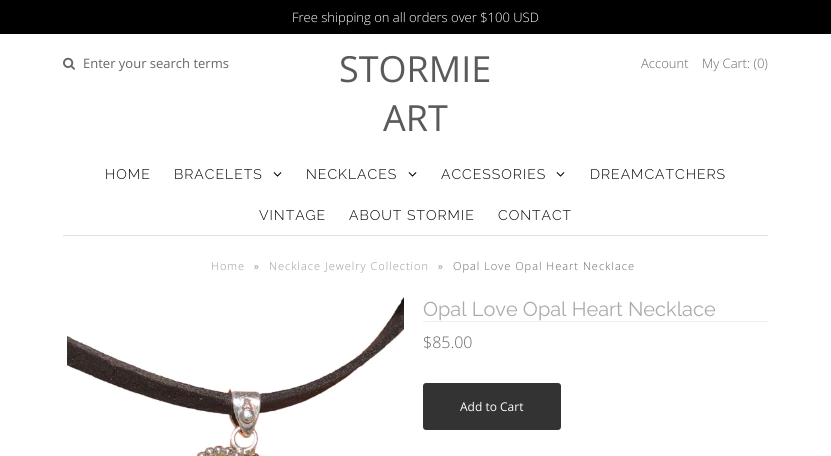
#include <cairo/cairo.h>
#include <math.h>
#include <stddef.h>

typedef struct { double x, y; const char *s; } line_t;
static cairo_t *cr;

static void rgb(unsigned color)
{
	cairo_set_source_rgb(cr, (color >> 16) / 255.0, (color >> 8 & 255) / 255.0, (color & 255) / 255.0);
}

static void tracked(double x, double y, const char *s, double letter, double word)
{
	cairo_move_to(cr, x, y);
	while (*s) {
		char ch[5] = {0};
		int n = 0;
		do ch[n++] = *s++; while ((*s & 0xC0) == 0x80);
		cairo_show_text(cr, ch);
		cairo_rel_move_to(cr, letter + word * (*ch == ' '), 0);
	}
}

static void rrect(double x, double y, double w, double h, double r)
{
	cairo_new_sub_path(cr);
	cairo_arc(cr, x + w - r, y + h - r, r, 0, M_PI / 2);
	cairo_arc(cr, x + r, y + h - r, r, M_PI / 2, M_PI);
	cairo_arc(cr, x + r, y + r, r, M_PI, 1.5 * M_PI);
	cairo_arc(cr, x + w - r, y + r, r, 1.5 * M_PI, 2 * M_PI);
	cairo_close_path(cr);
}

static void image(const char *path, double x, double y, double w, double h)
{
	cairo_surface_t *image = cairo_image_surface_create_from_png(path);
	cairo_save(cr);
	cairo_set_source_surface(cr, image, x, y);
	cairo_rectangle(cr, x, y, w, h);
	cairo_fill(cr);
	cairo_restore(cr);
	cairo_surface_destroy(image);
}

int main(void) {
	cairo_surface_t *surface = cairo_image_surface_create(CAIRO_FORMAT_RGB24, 831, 456);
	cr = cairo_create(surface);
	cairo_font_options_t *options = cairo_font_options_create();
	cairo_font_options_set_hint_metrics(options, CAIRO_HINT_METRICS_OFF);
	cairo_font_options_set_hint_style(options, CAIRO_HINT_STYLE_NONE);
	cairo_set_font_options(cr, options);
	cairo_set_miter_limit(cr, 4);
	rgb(0xffffff);
	cairo_paint(cr);
	rgb(0x000000);
	cairo_rectangle(cr, 0, 0, 831, 34);
	cairo_fill(cr);
	image("img/1.png", 63, 57, 12, 13);
	rgb(0xe0e0e0);
	cairo_rectangle(cr, 63, 235, 705, 1);
	cairo_fill(cr);
	image("img/2.png", 273, 172, 9, 5);
	image("img/2.png", 408, 172, 9, 5);
	image("img/2.png", 556, 172, 9, 5);
	image("img/3.png", 67, 297, 337, 159);
	rgb(0xeeeeee);
	cairo_rectangle(cr, 423, 321, 345, 1);
	cairo_fill(cr);
	rgb(0x333333);
	rrect(423, 383, 138, 47, 3);
	cairo_fill(cr);
	cairo_select_font_face(cr, "Open Sans Light", CAIRO_FONT_SLANT_NORMAL, CAIRO_FONT_WEIGHT_NORMAL);
	cairo_set_font_size(cr, 13);
	rgb(0xffffff);
	cairo_move_to(cr, 292, 22);
	cairo_show_text(cr, "Free shipping on all orders over $100 USD");
	cairo_select_font_face(cr, "Open Sans", CAIRO_FONT_SLANT_NORMAL, CAIRO_FONT_WEIGHT_NORMAL);
	rgb(0x666666);
	cairo_move_to(cr, 83, 68);
	cairo_show_text(cr, "Enter your search terms");
	cairo_set_font_size(cr, 36);
	rgb(0x5a5a5a);
	cairo_move_to(cr, 339, 82);
	cairo_show_text(cr, "STORMIE");
	cairo_move_to(cr, 383, 131);
	cairo_show_text(cr, "ART");
	cairo_select_font_face(cr, "Open Sans Light", CAIRO_FONT_SLANT_NORMAL, CAIRO_FONT_WEIGHT_NORMAL);
	cairo_set_font_size(cr, 13);
	rgb(0x666666);
	cairo_move_to(cr, 641, 68);
	cairo_show_text(cr, "Account");
	cairo_move_to(cr, 702, 68);
	cairo_show_text(cr, "My Cart: (0)");
	cairo_select_font_face(cr, "Raleway Light", CAIRO_FONT_SLANT_NORMAL, CAIRO_FONT_WEIGHT_NORMAL);
	cairo_set_font_size(cr, 14);
	rgb(0x000000);
	{
		static const line_t items[] = {
			{105, 179, "HOME"},
			{174, 179, "BRACELETS"},
			{306, 179, "NECKLACES"},
			{441, 179, "ACCESSORIES"},
			{590, 179, "DREAMCATCHERS"},
			{259, 220, "VINTAGE"},
			{349, 220, "ABOUT STORMIE"},
			{498, 220, "CONTACT"},
		};
		for (size_t i = 0; i < sizeof items / sizeof *items; i++) {
			tracked(items[i].x, items[i].y, items[i].s, 1, 0);
		}
	}
	cairo_select_font_face(cr, "Open Sans Light", CAIRO_FONT_SLANT_NORMAL, CAIRO_FONT_WEIGHT_NORMAL);
	cairo_set_font_size(cr, 11);
	rgb(0x999999);
	tracked(211, 270, "Home", 1, 0);
	rgb(0x666666);
	tracked(254, 270, "»", 1, 0);
	rgb(0x999999);
	tracked(269, 270, "Necklace Jewelry Collection", 1, 0);
	rgb(0x666666);
	tracked(438, 270, "»", 1, 0);
	tracked(453, 270, "Opal Love Opal Heart Necklace", 1, 0);
	cairo_select_font_face(cr, "Raleway", CAIRO_FONT_SLANT_NORMAL, CAIRO_FONT_WEIGHT_NORMAL);
	cairo_set_font_size(cr, 20);
	rgb(0xaaaaaa);
	cairo_move_to(cr, 423, 316);
	cairo_show_text(cr, "Opal Love Opal Heart Necklace");
	cairo_select_font_face(cr, "Open Sans Light", CAIRO_FONT_SLANT_NORMAL, CAIRO_FONT_WEIGHT_NORMAL);
	cairo_set_font_size(cr, 16);
	rgb(0x666666);
	cairo_move_to(cr, 423, 348);
	cairo_show_text(cr, "$85.00");
	cairo_select_font_face(cr, "Open Sans", CAIRO_FONT_SLANT_NORMAL, CAIRO_FONT_WEIGHT_NORMAL);
	cairo_set_font_size(cr, 12);
	rgb(0xffffff);
	cairo_move_to(cr, 460, 411);
	cairo_show_text(cr, "Add to Cart");
	cairo_surface_write_to_png(surface, "page.png");
	cairo_font_options_destroy(options);
	cairo_destroy(cr);
	cairo_surface_destroy(surface);
	return 0;
}
